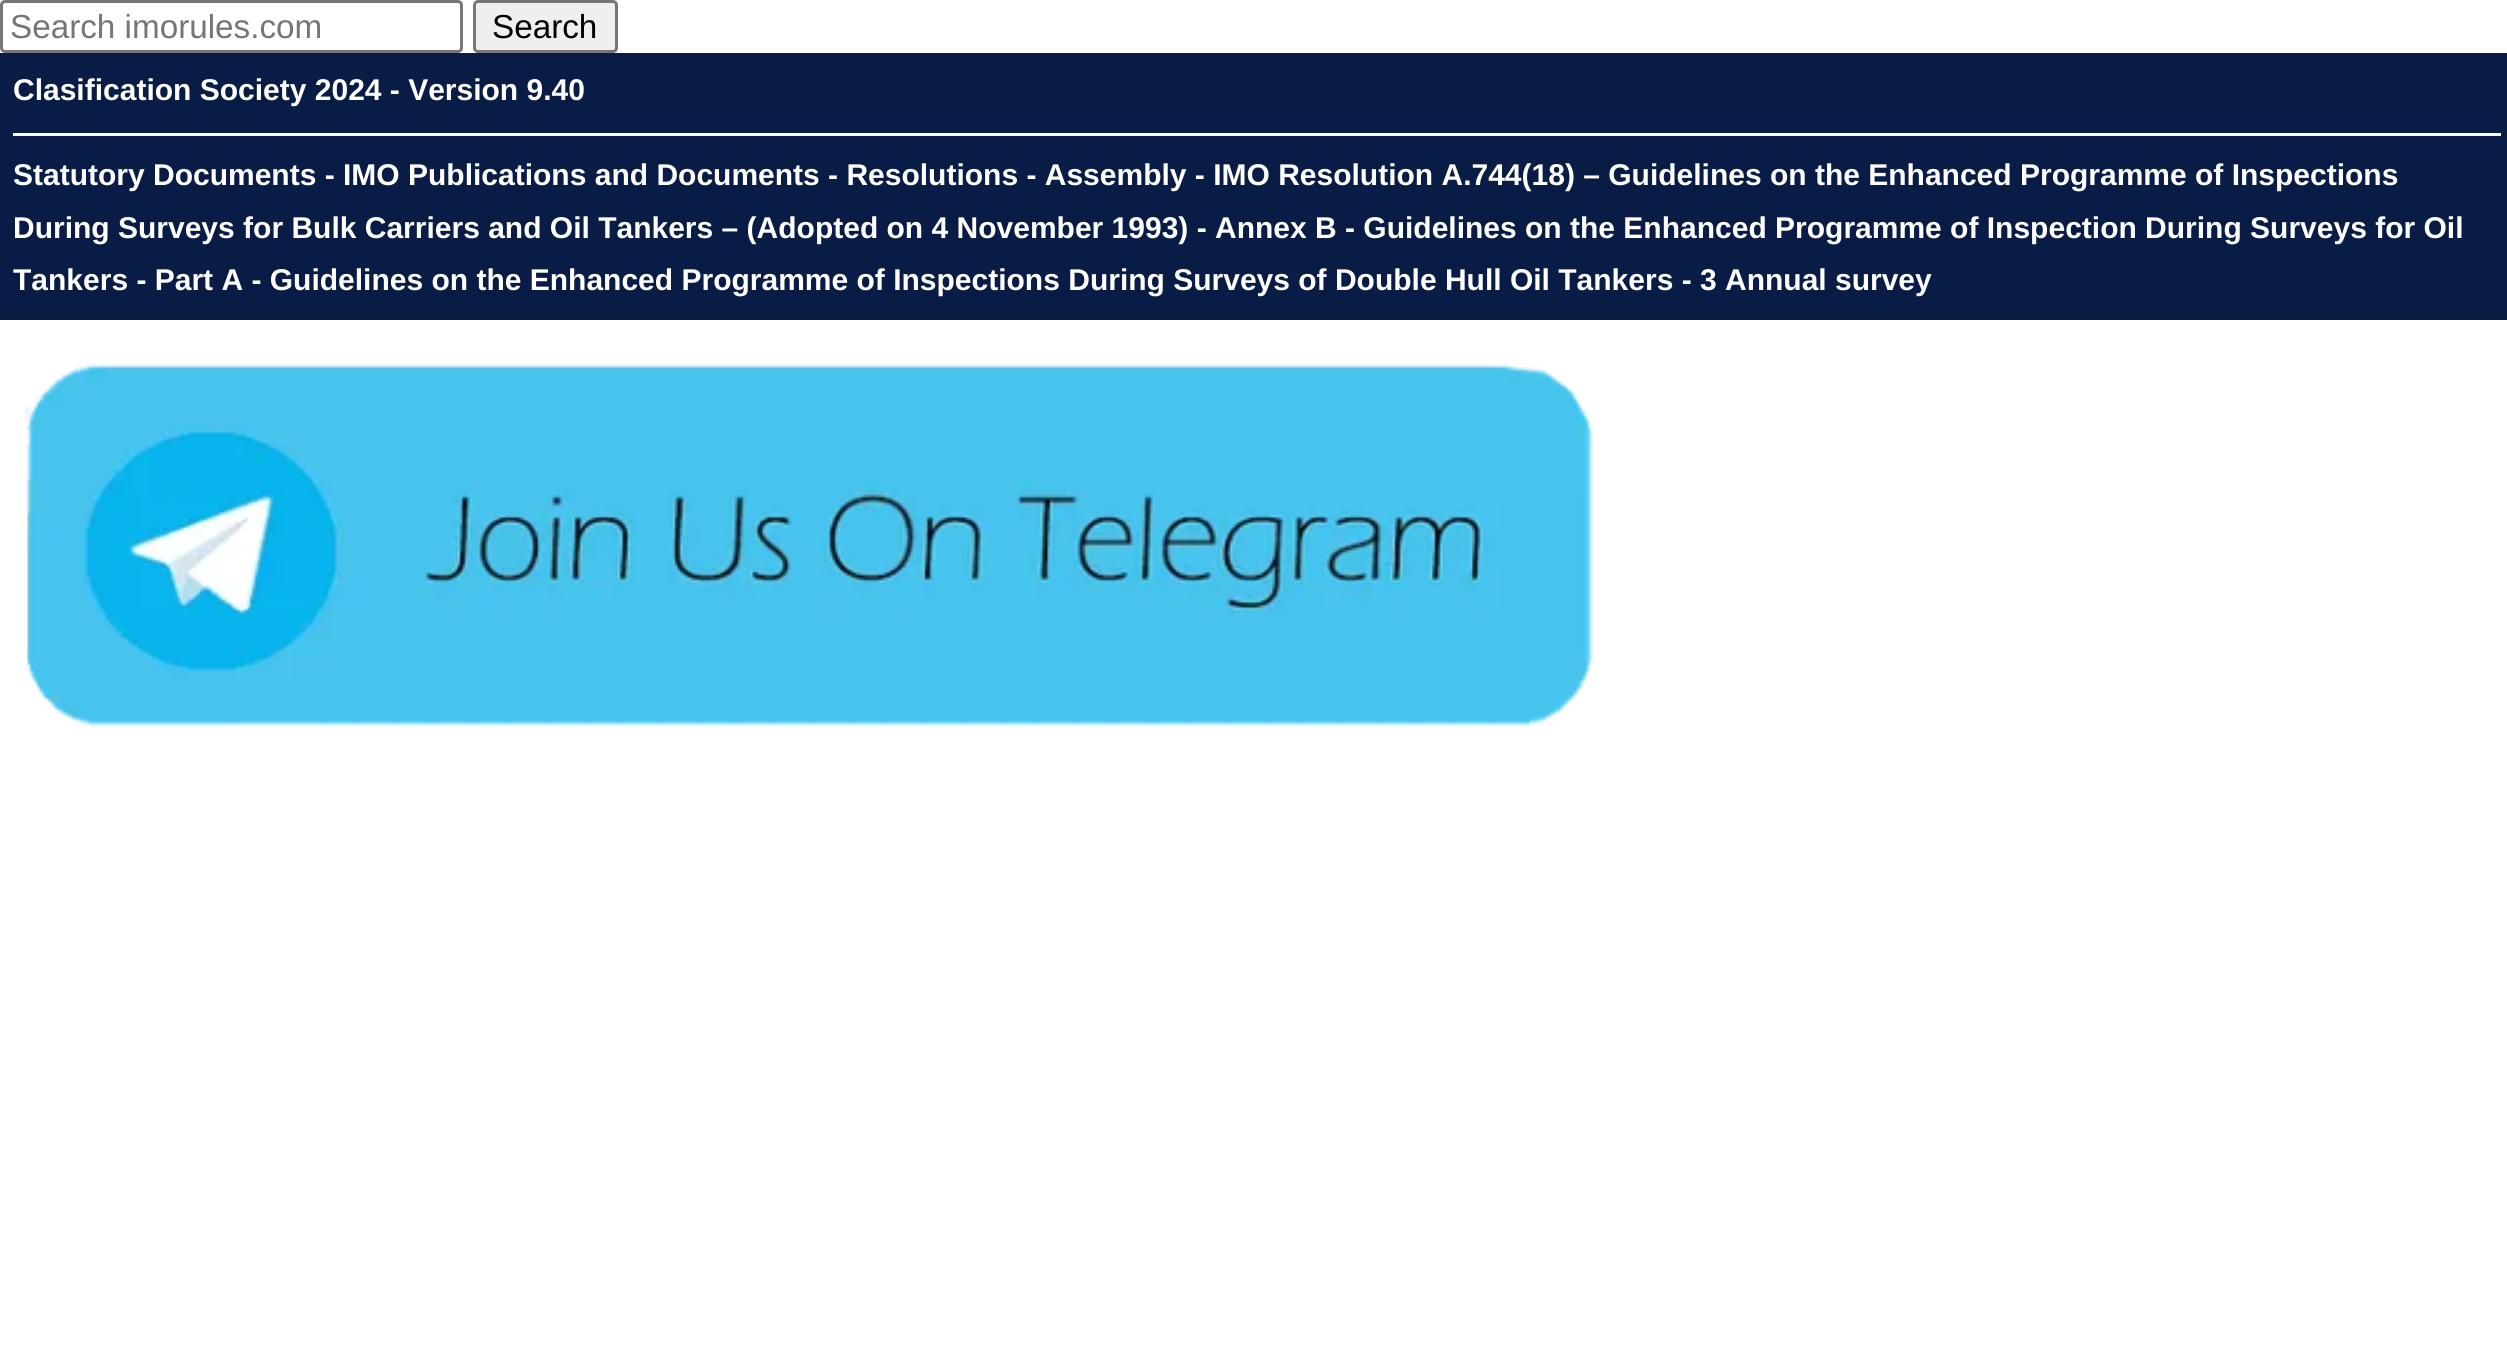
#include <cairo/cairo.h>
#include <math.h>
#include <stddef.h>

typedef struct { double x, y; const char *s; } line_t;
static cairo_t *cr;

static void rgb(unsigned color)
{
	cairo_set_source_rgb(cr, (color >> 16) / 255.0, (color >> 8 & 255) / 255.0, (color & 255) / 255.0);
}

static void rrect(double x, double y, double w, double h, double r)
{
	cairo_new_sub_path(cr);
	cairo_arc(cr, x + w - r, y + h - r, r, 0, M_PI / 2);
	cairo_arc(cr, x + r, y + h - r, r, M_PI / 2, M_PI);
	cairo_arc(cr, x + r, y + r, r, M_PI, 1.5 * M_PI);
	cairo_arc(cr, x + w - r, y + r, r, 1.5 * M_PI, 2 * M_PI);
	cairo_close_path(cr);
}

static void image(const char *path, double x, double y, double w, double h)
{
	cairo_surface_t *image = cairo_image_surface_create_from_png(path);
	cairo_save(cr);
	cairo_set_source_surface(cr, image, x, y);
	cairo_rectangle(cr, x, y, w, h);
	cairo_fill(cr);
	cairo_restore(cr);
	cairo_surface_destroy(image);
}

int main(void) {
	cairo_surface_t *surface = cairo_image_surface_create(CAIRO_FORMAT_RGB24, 2507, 1351);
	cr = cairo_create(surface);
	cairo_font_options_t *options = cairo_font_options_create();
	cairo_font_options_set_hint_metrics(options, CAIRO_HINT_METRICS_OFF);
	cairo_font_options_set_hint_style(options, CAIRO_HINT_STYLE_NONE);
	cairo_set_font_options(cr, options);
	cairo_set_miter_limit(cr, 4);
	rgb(0xffffff);
	cairo_paint(cr);
	rrect(1.5, 1.5, 460, 50, 3.5);
	rgb(0x767676);
	cairo_set_line_width(cr, 3);
	cairo_stroke(cr);
	rgb(0xefefef);
	rrect(474.5, 1.5, 142, 50, 3.5);
	cairo_fill_preserve(cr);
	rgb(0x767676);
	cairo_stroke(cr);
	rgb(0x091c45);
	cairo_rectangle(cr, 0, 53, 2507, 267);
	cairo_fill(cr);
	rgb(0xffffff);
	cairo_rectangle(cr, 13, 133, 2488, 3);
	cairo_fill(cr);
	image("img/1.png", 25, 364, 1569, 363);
	cairo_select_font_face(cr, "Liberation Sans", CAIRO_FONT_SLANT_NORMAL, CAIRO_FONT_WEIGHT_NORMAL);
	cairo_set_font_size(cr, 33.25);
	rgb(0x757575);
	cairo_move_to(cr, 10, 38);
	cairo_show_text(cr, "Search imorules.com");
	rgb(0x000000);
	cairo_move_to(cr, 492, 38);
	cairo_show_text(cr, "Search");
	cairo_select_font_face(cr, "Liberation Sans", CAIRO_FONT_SLANT_NORMAL, CAIRO_FONT_WEIGHT_BOLD);
	cairo_set_font_size(cr, 30);
	rgb(0xffffff);
	{
		static const line_t items[] = {
			{13, 100, "Clasification Society 2024 - Version 9.40"},
			{13, 185, "Statutory Documents - IMO Publications and Documents - Resolutions - Assembly - IMO Resolution A.744(18) – Guidelines on the Enhanced Programme of Inspections"},
			{13, 238, "During Surveys for Bulk Carriers and Oil Tankers – (Adopted on 4 November 1993) - Annex B - Guidelines on the Enhanced Programme of Inspection During Surveys for Oil"},
			{13, 290, "Tankers - Part A - Guidelines on the Enhanced Programme of Inspections During Surveys of Double Hull Oil Tankers - 3 Annual survey"},
		};
		for (size_t i = 0; i < sizeof items / sizeof *items; i++) {
			cairo_move_to(cr, items[i].x, items[i].y);
			cairo_show_text(cr, items[i].s);
		}
	}
	cairo_surface_write_to_png(surface, "page.png");
	cairo_font_options_destroy(options);
	cairo_destroy(cr);
	cairo_surface_destroy(surface);
	return 0;
}
